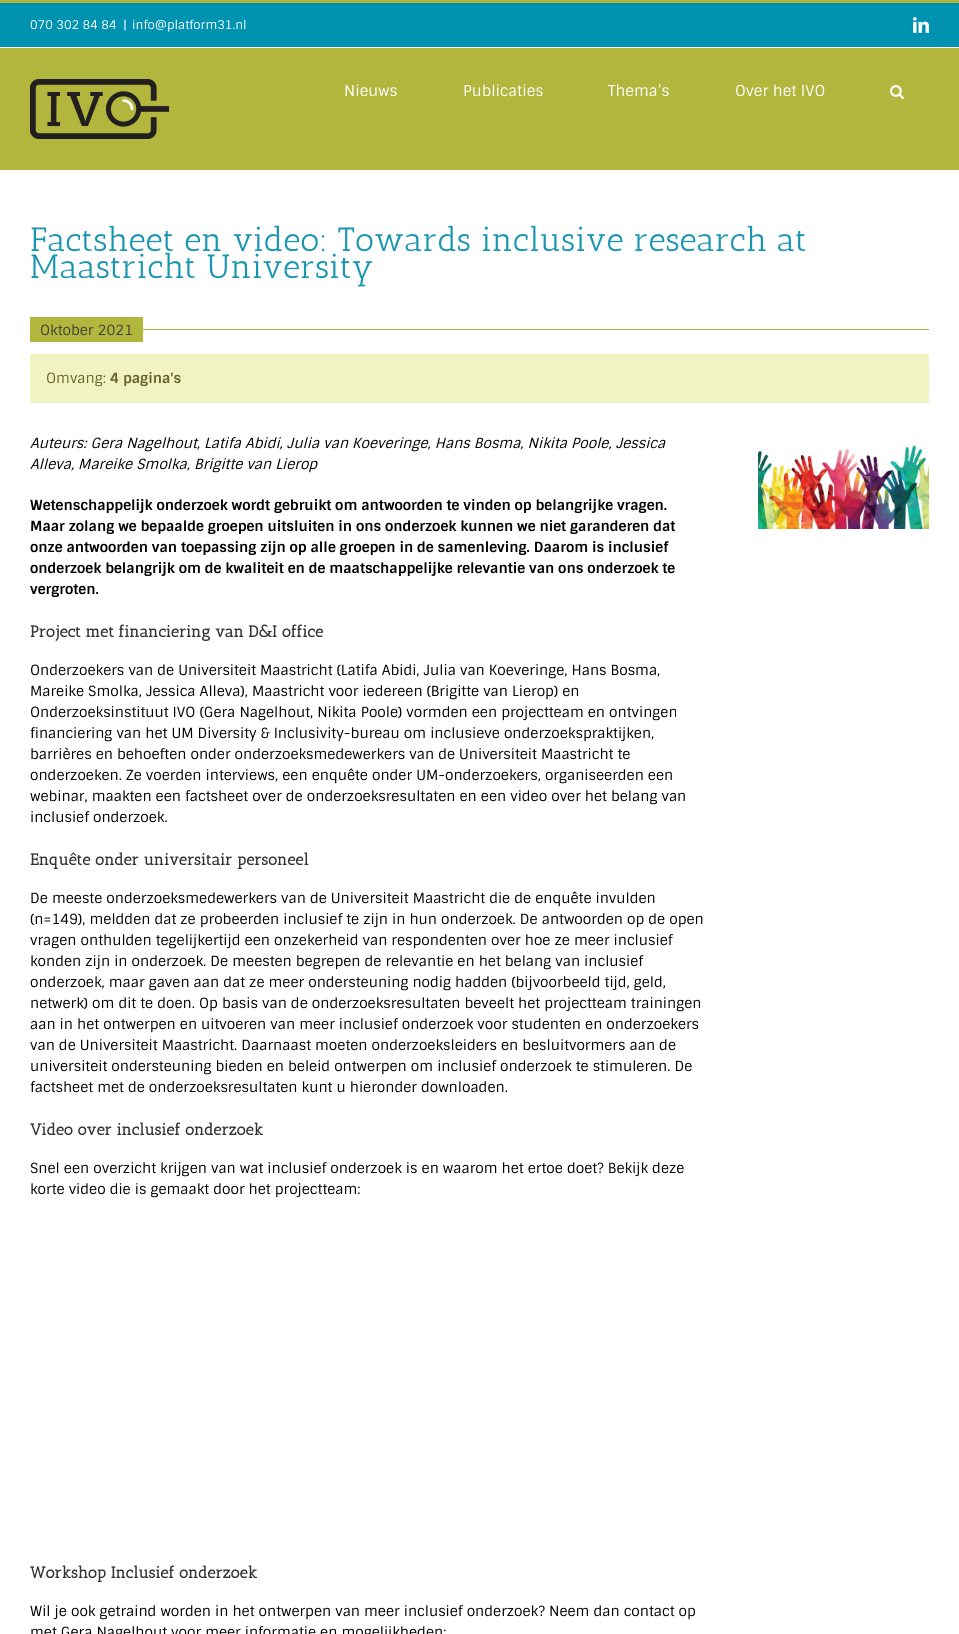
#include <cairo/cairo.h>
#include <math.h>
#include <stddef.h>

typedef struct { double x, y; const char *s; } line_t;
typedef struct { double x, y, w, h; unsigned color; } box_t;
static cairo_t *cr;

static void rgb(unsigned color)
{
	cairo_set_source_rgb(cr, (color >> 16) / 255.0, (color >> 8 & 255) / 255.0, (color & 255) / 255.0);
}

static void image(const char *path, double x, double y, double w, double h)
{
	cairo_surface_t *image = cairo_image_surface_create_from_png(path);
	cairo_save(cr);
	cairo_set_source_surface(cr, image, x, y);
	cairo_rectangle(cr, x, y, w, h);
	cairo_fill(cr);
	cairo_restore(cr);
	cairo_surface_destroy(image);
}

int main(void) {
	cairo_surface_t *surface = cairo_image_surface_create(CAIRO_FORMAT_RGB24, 959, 1634);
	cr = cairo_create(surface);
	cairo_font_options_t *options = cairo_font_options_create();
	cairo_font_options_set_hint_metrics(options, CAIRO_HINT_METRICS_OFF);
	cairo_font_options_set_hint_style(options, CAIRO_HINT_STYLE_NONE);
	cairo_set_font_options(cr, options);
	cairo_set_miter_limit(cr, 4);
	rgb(0xffffff);
	cairo_paint(cr);
	rgb(0x0093b1);
	cairo_rectangle(cr, 0, 3, 959, 44);
	cairo_fill(cr);
	rgb(0xb3b63d);
	cairo_rectangle(cr, 0, 0, 959, 3);
	cairo_fill(cr);
	image("img/1.png", 913, 17, 16, 16);
	cairo_rectangle(cr, 0, 48, 959, 122);
	cairo_fill(cr);
	image("img/2.png", 30, 79, 139, 60);
	image("img/3.png", 890, 85, 14, 14);
	{
		static const box_t items[] = {
			{30, 317, 113, 25, 0xb3b63d},
			{143, 329, 786, 1, 0xb3b63d},
			{30, 354, 899, 49, 0xf2f3c3},
		};
		for (size_t i = 0; i < sizeof items / sizeof *items; i++) {
			rgb(items[i].color);
			cairo_rectangle(cr, items[i].x, items[i].y, items[i].w, items[i].h);
			cairo_fill(cr);
		}
	}
	image("img/4.png", 758, 442, 171, 87);
	cairo_select_font_face(cr, "Sintony", CAIRO_FONT_SLANT_NORMAL, CAIRO_FONT_WEIGHT_NORMAL);
	cairo_set_font_size(cr, 12);
	rgb(0xffffff);
	{
		static const line_t items[] = {
			{30, 29, "070 302 84 84"},
			{123, 29, "|"},
			{132, 29, "info@platform31.nl"},
		};
		for (size_t i = 0; i < sizeof items / sizeof *items; i++) {
			cairo_move_to(cr, items[i].x, items[i].y);
			cairo_show_text(cr, items[i].s);
		}
	}
	cairo_set_font_size(cr, 15);
	{
		static const line_t items[] = {
			{344, 96, "Nieuws"},
			{463, 96, "Publicaties"},
			{608, 96, "Thema’s"},
			{735, 96, "Over het IVO"},
		};
		for (size_t i = 0; i < sizeof items / sizeof *items; i++) {
			cairo_move_to(cr, items[i].x, items[i].y);
			cairo_show_text(cr, items[i].s);
		}
	}
	cairo_select_font_face(cr, "Antic Slab", CAIRO_FONT_SLANT_NORMAL, CAIRO_FONT_WEIGHT_NORMAL);
	cairo_set_font_size(cr, 33.6);
	rgb(0x1895b0);
	cairo_move_to(cr, 30, 251);
	cairo_show_text(cr, "Factsheet en video: Towards inclusive research at");
	cairo_move_to(cr, 30, 278);
	cairo_show_text(cr, "Maastricht University");
	cairo_select_font_face(cr, "Sintony", CAIRO_FONT_SLANT_NORMAL, CAIRO_FONT_WEIGHT_NORMAL);
	cairo_set_font_size(cr, 14);
	rgb(0x404036);
	cairo_move_to(cr, 40, 335);
	cairo_show_text(cr, "Oktober 2021");
	rgb(0x656529);
	cairo_move_to(cr, 46, 383);
	cairo_show_text(cr, "Omvang:");
	cairo_select_font_face(cr, "Sintony", CAIRO_FONT_SLANT_NORMAL, CAIRO_FONT_WEIGHT_BOLD);
	cairo_move_to(cr, 110, 383);
	cairo_show_text(cr, "4 pagina's");
	cairo_select_font_face(cr, "Sintony", CAIRO_FONT_SLANT_ITALIC, CAIRO_FONT_WEIGHT_NORMAL);
	rgb(0x000000);
	cairo_move_to(cr, 30, 448);
	cairo_show_text(cr, "Auteurs: Gera Nagelhout, Latifa Abidi, Julia van Koeveringe, Hans Bosma, Nikita Poole, Jessica");
	cairo_move_to(cr, 30, 469);
	cairo_show_text(cr, "Alleva, Mareike Smolka, Brigitte van Lierop");
	cairo_select_font_face(cr, "Sintony", CAIRO_FONT_SLANT_NORMAL, CAIRO_FONT_WEIGHT_BOLD);
	{
		static const line_t items[] = {
			{30, 510, "Wetenschappelijk onderzoek wordt gebruikt om antwoorden te vinden op belangrijke vragen."},
			{30, 531, "Maar zolang we bepaalde groepen uitsluiten in ons onderzoek kunnen we niet garanderen dat"},
			{30, 552, "onze antwoorden van toepassing zijn op alle groepen in de samenleving. Daarom is inclusief"},
			{30, 573, "onderzoek belangrijk om de kwaliteit en de maatschappelijke relevantie van ons onderzoek te"},
			{30, 594, "vergroten."},
		};
		for (size_t i = 0; i < sizeof items / sizeof *items; i++) {
			cairo_move_to(cr, items[i].x, items[i].y);
			cairo_show_text(cr, items[i].s);
		}
	}
	cairo_select_font_face(cr, "Antic Slab", CAIRO_FONT_SLANT_NORMAL, CAIRO_FONT_WEIGHT_BOLD);
	cairo_set_font_size(cr, 16);
	rgb(0x333333);
	cairo_move_to(cr, 30, 637);
	cairo_show_text(cr, "Project met financiering van D&I office");
	cairo_select_font_face(cr, "Sintony", CAIRO_FONT_SLANT_NORMAL, CAIRO_FONT_WEIGHT_NORMAL);
	cairo_set_font_size(cr, 14);
	rgb(0x000000);
	{
		static const line_t items[] = {
			{30, 675, "Onderzoekers van de Universiteit Maastricht (Latifa Abidi, Julia van Koeveringe, Hans Bosma,"},
			{30, 696, "Mareike Smolka, Jessica Alleva), Maastricht voor iedereen (Brigitte van Lierop) en"},
			{30, 717, "Onderzoeksinstituut IVO (Gera Nagelhout, Nikita Poole) vormden een projectteam en ontvingen"},
			{30, 738, "financiering van het UM Diversity & Inclusivity-bureau om inclusieve onderzoekspraktijken,"},
			{30, 759, "barrières en behoeften onder onderzoeksmedewerkers van de Universiteit Maastricht te"},
			{30, 780, "onderzoeken. Ze voerden interviews, een enquête onder UM-onderzoekers, organiseerden een"},
			{30, 801, "webinar, maakten een factsheet over de onderzoeksresultaten en een video over het belang van"},
			{30, 822, "inclusief onderzoek."},
		};
		for (size_t i = 0; i < sizeof items / sizeof *items; i++) {
			cairo_move_to(cr, items[i].x, items[i].y);
			cairo_show_text(cr, items[i].s);
		}
	}
	cairo_select_font_face(cr, "Antic Slab", CAIRO_FONT_SLANT_NORMAL, CAIRO_FONT_WEIGHT_BOLD);
	cairo_set_font_size(cr, 16);
	rgb(0x333333);
	cairo_move_to(cr, 30, 865);
	cairo_show_text(cr, "Enquête onder universitair personeel");
	cairo_select_font_face(cr, "Sintony", CAIRO_FONT_SLANT_NORMAL, CAIRO_FONT_WEIGHT_NORMAL);
	cairo_set_font_size(cr, 14);
	rgb(0x000000);
	{
		static const line_t items[] = {
			{30, 903, "De meeste onderzoeksmedewerkers van de Universiteit Maastricht die de enquête invulden"},
			{30, 924, "(n=149), meldden dat ze probeerden inclusief te zijn in hun onderzoek. De antwoorden op de open"},
			{30, 945, "vragen onthulden tegelijkertijd een onzekerheid van respondenten over hoe ze meer inclusief"},
			{30, 966, "konden zijn in onderzoek. De meesten begrepen de relevantie en het belang van inclusief"},
			{30, 987, "onderzoek, maar gaven aan dat ze meer ondersteuning nodig hadden (bijvoorbeeld tijd, geld,"},
			{30, 1008, "netwerk) om dit te doen. Op basis van de onderzoeksresultaten beveelt het projectteam trainingen"},
			{30, 1029, "aan in het ontwerpen en uitvoeren van meer inclusief onderzoek voor studenten en onderzoekers"},
			{30, 1050, "van de Universiteit Maastricht. Daarnaast moeten onderzoeksleiders en besluitvormers aan de"},
			{30, 1071, "universiteit ondersteuning bieden en beleid ontwerpen om inclusief onderzoek te stimuleren. De"},
			{30, 1092, "factsheet met de onderzoeksresultaten kunt u hieronder downloaden."},
		};
		for (size_t i = 0; i < sizeof items / sizeof *items; i++) {
			cairo_move_to(cr, items[i].x, items[i].y);
			cairo_show_text(cr, items[i].s);
		}
	}
	cairo_select_font_face(cr, "Antic Slab", CAIRO_FONT_SLANT_NORMAL, CAIRO_FONT_WEIGHT_BOLD);
	cairo_set_font_size(cr, 16);
	rgb(0x333333);
	cairo_move_to(cr, 30, 1135);
	cairo_show_text(cr, "Video over inclusief onderzoek");
	cairo_select_font_face(cr, "Sintony", CAIRO_FONT_SLANT_NORMAL, CAIRO_FONT_WEIGHT_NORMAL);
	cairo_set_font_size(cr, 14);
	rgb(0x000000);
	cairo_move_to(cr, 30, 1173);
	cairo_show_text(cr, "Snel een overzicht krijgen van wat inclusief onderzoek is en waarom het ertoe doet? Bekijk deze");
	cairo_move_to(cr, 30, 1194);
	cairo_show_text(cr, "korte video die is gemaakt door het projectteam:");
	cairo_select_font_face(cr, "Antic Slab", CAIRO_FONT_SLANT_NORMAL, CAIRO_FONT_WEIGHT_BOLD);
	cairo_set_font_size(cr, 16);
	rgb(0x333333);
	cairo_move_to(cr, 30, 1578);
	cairo_show_text(cr, "Workshop Inclusief onderzoek");
	cairo_select_font_face(cr, "Sintony", CAIRO_FONT_SLANT_NORMAL, CAIRO_FONT_WEIGHT_NORMAL);
	cairo_set_font_size(cr, 14);
	rgb(0x000000);
	cairo_move_to(cr, 30, 1616);
	cairo_show_text(cr, "Wil je ook getraind worden in het ontwerpen van meer inclusief onderzoek? Neem dan contact op");
	cairo_move_to(cr, 30, 1637);
	cairo_show_text(cr, "met Gera Nagelhout voor meer informatie en mogelijkheden:");
	cairo_surface_write_to_png(surface, "page.png");
	cairo_font_options_destroy(options);
	cairo_destroy(cr);
	cairo_surface_destroy(surface);
	return 0;
}
